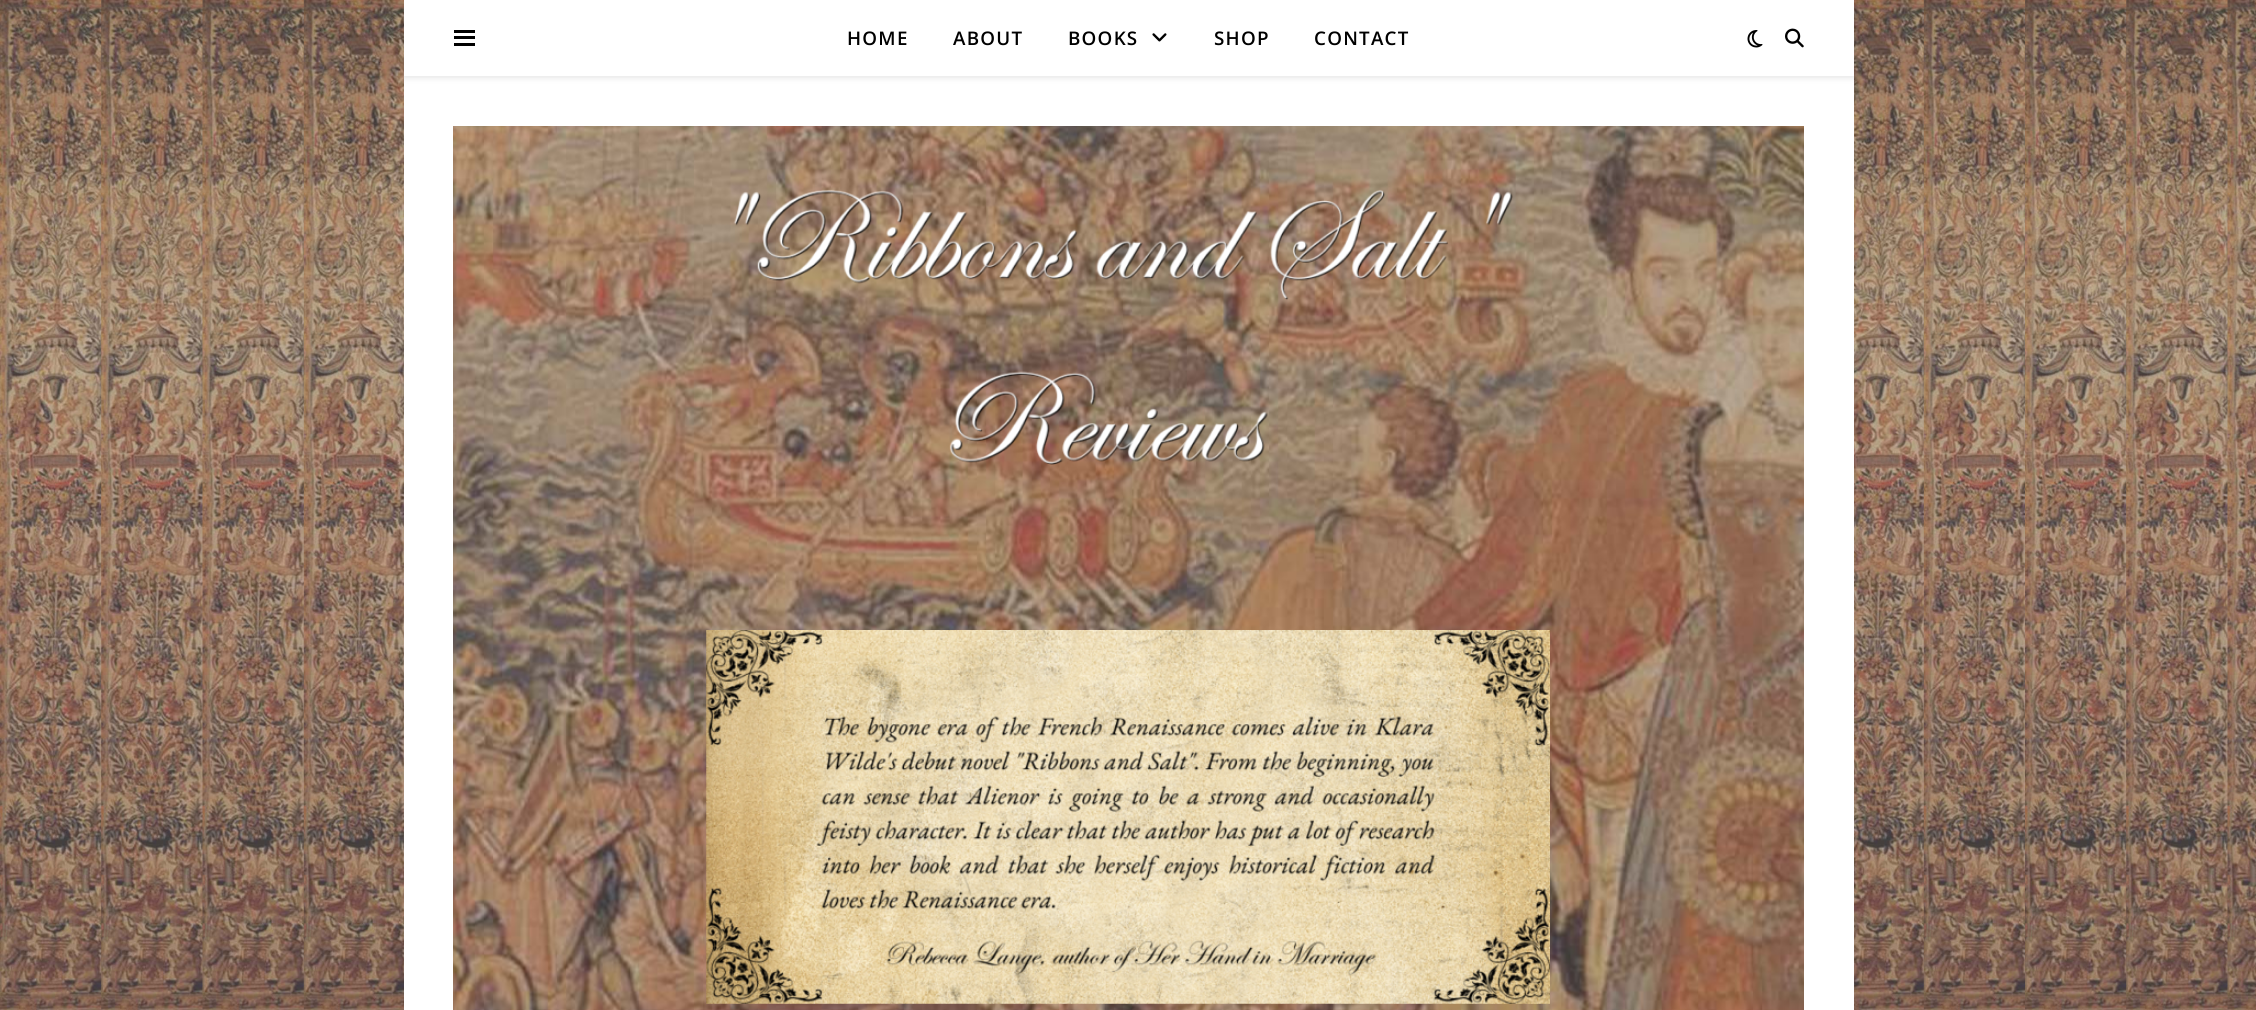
#include <cairo/cairo.h>
#include <math.h>
#include <stddef.h>

typedef struct { double x, y; const char *s; } line_t;
typedef struct { double x, y, w, h; unsigned color; } box_t;
static cairo_t *cr;

static void rgb(unsigned color)
{
	cairo_set_source_rgb(cr, (color >> 16) / 255.0, (color >> 8 & 255) / 255.0, (color & 255) / 255.0);
}

static void tracked(double x, double y, const char *s, double letter, double word)
{
	cairo_move_to(cr, x, y);
	while (*s) {
		char ch[5] = {0};
		int n = 0;
		do ch[n++] = *s++; while ((*s & 0xC0) == 0x80);
		cairo_show_text(cr, ch);
		cairo_rel_move_to(cr, letter + word * (*ch == ' '), 0);
	}
}

static void rrect(double x, double y, double w, double h, double r)
{
	cairo_new_sub_path(cr);
	cairo_arc(cr, x + w - r, y + h - r, r, 0, M_PI / 2);
	cairo_arc(cr, x + r, y + h - r, r, M_PI / 2, M_PI);
	cairo_arc(cr, x + r, y + r, r, M_PI, 1.5 * M_PI);
	cairo_arc(cr, x + w - r, y + r, r, 1.5 * M_PI, 2 * M_PI);
	cairo_close_path(cr);
}

static void soft_shadow(double x, double y, double w, double h, double r, double blur, double alpha)
{
	cairo_push_group_with_content(cr, CAIRO_CONTENT_ALPHA);
	cairo_set_operator(cr, CAIRO_OPERATOR_SOURCE);
	for (int i = 15; i >= -15 && fmin(w, h) + blur * i / 3 > 0; i -= 2) {
		double e = blur * i / 6;
		cairo_set_source_rgba(cr, 0, 0, 0, alpha * erfc((i - 1) / 8.5) / 2);
		rrect(x - e, y - e, w + 2 * e, h + 2 * e, fmax(0, fmin(r + e + blur * .6, fmin(w, h) / 2 + e)));
		cairo_fill(cr);
	}
	cairo_pattern_t *soft = cairo_pop_group(cr);
	cairo_mask(cr, soft);
	cairo_pattern_destroy(soft);
}

static void image(const char *path, double x, double y, double w, double h)
{
	cairo_surface_t *image = cairo_image_surface_create_from_png(path);
	cairo_save(cr);
	cairo_set_source_surface(cr, image, x, y);
	cairo_rectangle(cr, x, y, w, h);
	cairo_fill(cr);
	cairo_restore(cr);
	cairo_surface_destroy(image);
}

int main(void) {
	cairo_surface_t *surface = cairo_image_surface_create(CAIRO_FORMAT_RGB24, 2256, 1010);
	cr = cairo_create(surface);
	cairo_font_options_t *options = cairo_font_options_create();
	cairo_font_options_set_hint_metrics(options, CAIRO_HINT_METRICS_OFF);
	cairo_font_options_set_hint_style(options, CAIRO_HINT_STYLE_NONE);
	cairo_set_font_options(cr, options);
	cairo_set_miter_limit(cr, 4);
	rgb(0xffffff);
	cairo_paint(cr);
	image("img/1.png", 0, 0, 2256, 1010);
	rgb(0xffffff);
	cairo_rectangle(cr, 404, 76, 1450, 934);
	cairo_fill(cr);
	rgb(0x000000);
	soft_shadow(404, 1, 1450, 77, 0, 3, 0.1);
	{
		static const box_t items[] = {
			{404, 0, 1450, 76, 0xffffff},
			{454, 30, 21, 3, 0x000000},
			{454, 36, 21, 3, 0x000000},
			{454, 43, 21, 3, 0x000000},
		};
		for (size_t i = 0; i < sizeof items / sizeof *items; i++) {
			rgb(items[i].color);
			cairo_rectangle(cr, items[i].x, items[i].y, items[i].w, items[i].h);
			cairo_fill(cr);
		}
	}
	image("img/2.png", 1152, 33, 15, 9);
	image("img/3.png", 1747, 30, 16, 18);
	image("img/4.png", 1785, 28, 19, 20);
	image("img/5.png", 453, 126, 1351, 884);
	image("img/6.png", 733, 189, 780, 276);
	image("img/7.png", 706, 630, 844, 374);
	cairo_select_font_face(cr, "Open Sans SemiBold", CAIRO_FONT_SLANT_NORMAL, CAIRO_FONT_WEIGHT_NORMAL);
	cairo_set_font_size(cr, 18.75);
	{
		static const line_t items[] = {
			{847, 45, "HOME"},
			{953, 45, "ABOUT"},
			{1068, 45, "BOOKS"},
			{1214, 45, "SHOP"},
			{1314, 45, "CONTACT"},
		};
		for (size_t i = 0; i < sizeof items / sizeof *items; i++) {
			tracked(items[i].x, items[i].y, items[i].s, 1.25, 0);
		}
	}
	cairo_surface_write_to_png(surface, "page.png");
	cairo_font_options_destroy(options);
	cairo_destroy(cr);
	cairo_surface_destroy(surface);
	return 0;
}
